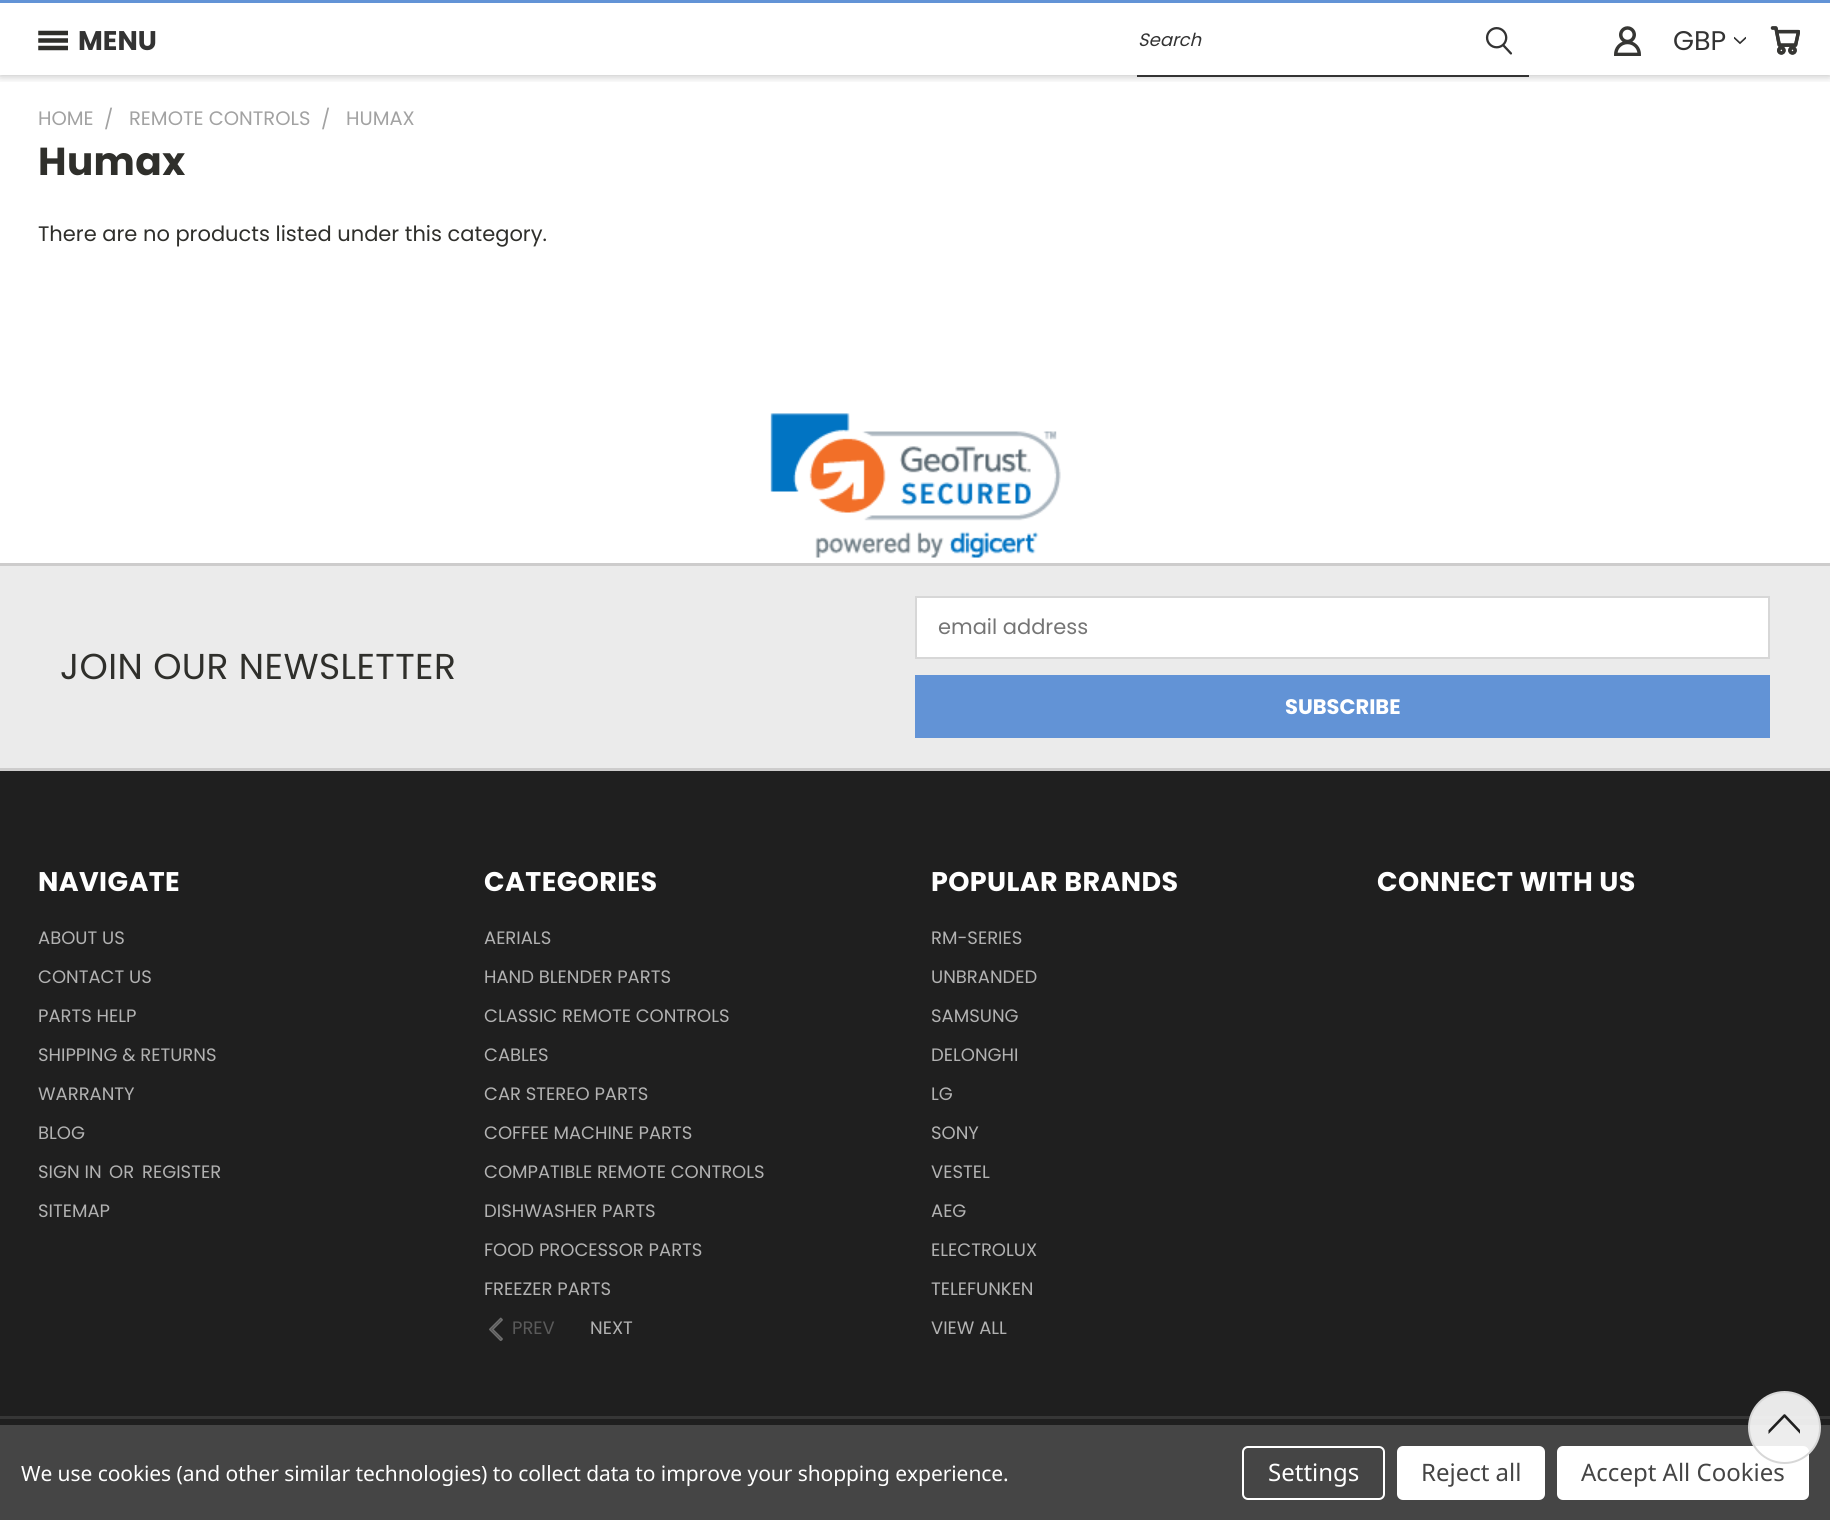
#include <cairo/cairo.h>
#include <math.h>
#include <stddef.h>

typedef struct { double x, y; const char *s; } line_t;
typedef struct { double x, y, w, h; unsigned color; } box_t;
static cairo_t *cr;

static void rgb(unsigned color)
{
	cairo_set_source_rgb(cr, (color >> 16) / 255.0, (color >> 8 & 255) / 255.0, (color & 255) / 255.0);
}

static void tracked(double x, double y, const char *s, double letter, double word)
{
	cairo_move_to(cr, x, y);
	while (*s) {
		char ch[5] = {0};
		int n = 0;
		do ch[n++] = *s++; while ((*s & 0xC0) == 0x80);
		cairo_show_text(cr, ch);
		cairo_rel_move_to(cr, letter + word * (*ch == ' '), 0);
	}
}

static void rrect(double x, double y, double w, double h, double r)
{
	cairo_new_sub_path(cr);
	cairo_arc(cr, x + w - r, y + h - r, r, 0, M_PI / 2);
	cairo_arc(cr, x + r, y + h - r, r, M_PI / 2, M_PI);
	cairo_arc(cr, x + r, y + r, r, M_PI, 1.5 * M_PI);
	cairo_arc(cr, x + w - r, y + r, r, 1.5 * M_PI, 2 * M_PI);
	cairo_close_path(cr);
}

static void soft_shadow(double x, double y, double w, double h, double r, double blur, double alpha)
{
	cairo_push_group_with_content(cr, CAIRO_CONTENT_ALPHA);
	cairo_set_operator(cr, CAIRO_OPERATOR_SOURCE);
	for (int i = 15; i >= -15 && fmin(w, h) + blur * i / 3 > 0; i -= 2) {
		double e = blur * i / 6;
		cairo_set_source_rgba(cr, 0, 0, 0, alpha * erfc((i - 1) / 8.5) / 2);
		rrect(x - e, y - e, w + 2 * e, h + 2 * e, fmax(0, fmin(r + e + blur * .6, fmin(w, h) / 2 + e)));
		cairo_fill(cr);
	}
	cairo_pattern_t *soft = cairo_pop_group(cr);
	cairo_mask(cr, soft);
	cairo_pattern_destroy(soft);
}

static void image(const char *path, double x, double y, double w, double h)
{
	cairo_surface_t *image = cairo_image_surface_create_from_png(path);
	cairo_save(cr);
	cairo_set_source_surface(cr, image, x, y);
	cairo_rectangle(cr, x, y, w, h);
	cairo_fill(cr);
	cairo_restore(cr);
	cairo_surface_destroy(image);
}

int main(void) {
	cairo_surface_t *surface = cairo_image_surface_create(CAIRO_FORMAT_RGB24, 1830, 1520);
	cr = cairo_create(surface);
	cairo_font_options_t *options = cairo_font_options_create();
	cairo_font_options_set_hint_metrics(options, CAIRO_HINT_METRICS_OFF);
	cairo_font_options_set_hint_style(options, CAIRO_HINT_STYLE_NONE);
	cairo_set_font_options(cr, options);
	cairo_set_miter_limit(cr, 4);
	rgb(0xffffff);
	cairo_paint(cr);
	cairo_save(cr);
	cairo_rectangle(cr, 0, 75, 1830, 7);
	cairo_clip(cr);
	rgb(0x000000);
	soft_shadow(0, 0, 1830, 75, 0, 5, 0.3);
	cairo_restore(cr);
	rgb(0x6293d6);
	cairo_rectangle(cr, 0, 0, 1830, 3);
	cairo_fill(cr);
	image("img/1.png", 38, 30, 30, 21);
	rgb(0x333333);
	cairo_rectangle(cr, 1137, 75, 392, 2);
	cairo_fill(cr);
	image("img/2.png", 1485, 27, 28, 28);
	image("img/3.png", 1614, 26, 27, 30);
	image("img/4.png", 1734, 36, 12, 9);
	image("img/5.png", 1770, 26, 30, 29);
	image("img/6.png", 770, 413, 291, 145);
	rgb(0xebebeb);
	cairo_rectangle(cr, 0, 566, 1830, 202);
	cairo_fill(cr);
	rgb(0xcdcccc);
	cairo_rectangle(cr, 0, 563, 1830, 3);
	cairo_fill(cr);
	rgb(0xffffff);
	cairo_rectangle(cr, 916, 597, 853, 61);
	cairo_fill_preserve(cr);
	rgb(0xd7d7d7);
	cairo_stroke(cr);
	{
		static const box_t items[] = {
			{915, 675, 855, 63, 0x6293d6},
			{0, 771, 1830, 654, 0x1f1f1f},
			{0, 768, 1830, 3, 0xcdcccc},
		};
		for (size_t i = 0; i < sizeof items / sizeof *items; i++) {
			rgb(items[i].color);
			cairo_rectangle(cr, items[i].x, items[i].y, items[i].w, items[i].h);
			cairo_fill(cr);
		}
	}
	image("img/7.png", 489, 1317, 14, 24);
	rgb(0x363636);
	cairo_rectangle(cr, 0, 1416, 1830, 3);
	cairo_fill(cr);
	rgb(0x454545);
	cairo_rectangle(cr, 0, 1425, 1830, 95);
	cairo_fill(cr);
	rrect(1243, 1447, 141, 52, 5);
	rgb(0xffffff);
	cairo_stroke(cr);
	rrect(1397, 1446, 148, 54, 6);
	cairo_fill(cr);
	rrect(1557, 1446, 252, 54, 6);
	cairo_fill(cr);
	cairo_select_font_face(cr, "Poppins", CAIRO_FONT_SLANT_NORMAL, CAIRO_FONT_WEIGHT_BOLD);
	cairo_set_font_size(cr, 27);
	rgb(0x333333);
	cairo_move_to(cr, 78, 50);
	cairo_show_text(cr, "MENU");
	cairo_select_font_face(cr, "Poppins", CAIRO_FONT_SLANT_ITALIC, CAIRO_FONT_WEIGHT_NORMAL);
	cairo_set_font_size(cr, 18);
	cairo_move_to(cr, 1138, 46);
	cairo_show_text(cr, "Search");
	cairo_select_font_face(cr, "Poppins", CAIRO_FONT_SLANT_NORMAL, CAIRO_FONT_WEIGHT_NORMAL);
	cairo_set_font_size(cr, 27);
	cairo_move_to(cr, 1673, 50);
	cairo_show_text(cr, "GBP");
	cairo_set_font_size(cr, 19.5);
	rgb(0xa2a2a2);
	{
		static const line_t items[] = {
			{38, 125, "HOME"},
			{104, 126, "/"},
			{129, 125, "REMOTE CONTROLS"},
			{321, 126, "/"},
			{346, 125, "HUMAX"},
		};
		for (size_t i = 0; i < sizeof items / sizeof *items; i++) {
			cairo_move_to(cr, items[i].x, items[i].y);
			cairo_show_text(cr, items[i].s);
		}
	}
	cairo_select_font_face(cr, "Poppins", CAIRO_FONT_SLANT_NORMAL, CAIRO_FONT_WEIGHT_BOLD);
	cairo_set_font_size(cr, 39);
	rgb(0x2f2f2b);
	tracked(38, 175, "Humax", 0.4, 0);
	cairo_select_font_face(cr, "Poppins", CAIRO_FONT_SLANT_NORMAL, CAIRO_FONT_WEIGHT_NORMAL);
	cairo_set_font_size(cr, 21);
	cairo_move_to(cr, 38, 241);
	cairo_show_text(cr, "There are no products listed under this category.");
	cairo_set_font_size(cr, 36);
	tracked(60, 679, "JOIN OUR NEWSLETTER", 0.4, 0);
	cairo_set_font_size(cr, 21);
	rgb(0x757575);
	cairo_move_to(cr, 938, 634);
	cairo_show_text(cr, "email address");
	cairo_select_font_face(cr, "Poppins", CAIRO_FONT_SLANT_NORMAL, CAIRO_FONT_WEIGHT_BOLD);
	rgb(0xffffff);
	cairo_move_to(cr, 1285, 714);
	cairo_show_text(cr, "SUBSCRIBE");
	cairo_set_font_size(cr, 27);
	tracked(38, 891, "NAVIGATE", 0.4, 0);
	cairo_select_font_face(cr, "Poppins", CAIRO_FONT_SLANT_NORMAL, CAIRO_FONT_WEIGHT_NORMAL);
	cairo_set_font_size(cr, 18);
	rgb(0xb2b2b2);
	{
		static const line_t items[] = {
			{38, 944, "ABOUT US"},
			{38, 983, "CONTACT US"},
			{38, 1022, "PARTS HELP"},
			{38, 1061, "SHIPPING & RETURNS"},
			{38, 1100, "WARRANTY"},
			{38, 1139, "BLOG"},
			{38, 1178, "SIGN IN"},
			{109, 1178, "OR"},
			{142, 1178, "REGISTER"},
			{38, 1217, "SITEMAP"},
		};
		for (size_t i = 0; i < sizeof items / sizeof *items; i++) {
			cairo_move_to(cr, items[i].x, items[i].y);
			cairo_show_text(cr, items[i].s);
		}
	}
	cairo_select_font_face(cr, "Poppins", CAIRO_FONT_SLANT_NORMAL, CAIRO_FONT_WEIGHT_BOLD);
	cairo_set_font_size(cr, 27);
	rgb(0xffffff);
	tracked(484, 891, "CATEGORIES", 0.4, 0);
	cairo_select_font_face(cr, "Poppins", CAIRO_FONT_SLANT_NORMAL, CAIRO_FONT_WEIGHT_NORMAL);
	cairo_set_font_size(cr, 18);
	rgb(0xb2b2b2);
	{
		static const line_t items[] = {
			{484, 944, "AERIALS"},
			{484, 983, "HAND BLENDER PARTS"},
			{484, 1022, "CLASSIC REMOTE CONTROLS"},
			{484, 1061, "CABLES"},
			{484, 1100, "CAR STEREO PARTS"},
			{484, 1139, "COFFEE MACHINE PARTS"},
			{484, 1178, "COMPATIBLE REMOTE CONTROLS"},
			{484, 1217, "DISHWASHER PARTS"},
			{484, 1256, "FOOD PROCESSOR PARTS"},
			{484, 1295, "FREEZER PARTS"},
		};
		for (size_t i = 0; i < sizeof items / sizeof *items; i++) {
			cairo_move_to(cr, items[i].x, items[i].y);
			cairo_show_text(cr, items[i].s);
		}
	}
	rgb(0x5a5a5a);
	cairo_move_to(cr, 512, 1334);
	cairo_show_text(cr, "PREV");
	rgb(0xb2b2b2);
	cairo_move_to(cr, 590, 1334);
	cairo_show_text(cr, "NEXT");
	cairo_select_font_face(cr, "Poppins", CAIRO_FONT_SLANT_NORMAL, CAIRO_FONT_WEIGHT_BOLD);
	cairo_set_font_size(cr, 27);
	rgb(0xffffff);
	tracked(931, 891, "POPULAR BRANDS", 0.4, 0);
	cairo_select_font_face(cr, "Poppins", CAIRO_FONT_SLANT_NORMAL, CAIRO_FONT_WEIGHT_NORMAL);
	cairo_set_font_size(cr, 18);
	rgb(0xb2b2b2);
	{
		static const line_t items[] = {
			{931, 944, "RM-SERIES"},
			{931, 983, "UNBRANDED"},
			{931, 1022, "SAMSUNG"},
			{931, 1061, "DELONGHI"},
			{931, 1100, "LG"},
			{931, 1139, "SONY"},
			{931, 1178, "VESTEL"},
			{931, 1217, "AEG"},
			{931, 1256, "ELECTROLUX"},
			{931, 1295, "TELEFUNKEN"},
			{931, 1334, "VIEW ALL"},
		};
		for (size_t i = 0; i < sizeof items / sizeof *items; i++) {
			cairo_move_to(cr, items[i].x, items[i].y);
			cairo_show_text(cr, items[i].s);
		}
	}
	cairo_select_font_face(cr, "Poppins", CAIRO_FONT_SLANT_NORMAL, CAIRO_FONT_WEIGHT_BOLD);
	cairo_set_font_size(cr, 27);
	rgb(0xffffff);
	tracked(1377, 891, "CONNECT WITH US", 0.4, 0);
	cairo_select_font_face(cr, "Noto Sans", CAIRO_FONT_SLANT_NORMAL, CAIRO_FONT_WEIGHT_NORMAL);
	cairo_set_font_size(cr, 21);
	tracked(21, 1481, "We use cookies (and other similar technologies) to collect data to improve your shopping experience.", -0.08, 0);
	cairo_set_font_size(cr, 24);
	cairo_move_to(cr, 1268, 1481);
	cairo_show_text(cr, "Settings");
	rgb(0x454545);
	cairo_move_to(cr, 1421, 1481);
	cairo_show_text(cr, "Reject all");
	cairo_move_to(cr, 1581, 1481);
	cairo_show_text(cr, "Accept All Cookies");
	cairo_set_source_rgba(cr, 1, 1, 1, 0.9);
	cairo_new_path(cr);
	cairo_arc(cr, 1784.5, 1427.5, 35.5, 0, 2 * M_PI);
	cairo_fill_preserve(cr);
	rgb(0xd7d7d7);
	cairo_stroke(cr);
	cairo_save(cr);
	cairo_new_path(cr);
	cairo_move_to(cr, 1800, 1414);
	cairo_line_to(cr, 1800, 1445);
	cairo_line_to(cr, 1768.5, 1445);
	cairo_line_to(cr, 1768.5, 1414);
	cairo_close_path(cr);
	cairo_clip(cr);
	cairo_new_path(cr);
	cairo_move_to(cr, 1810.5, 1443);
	cairo_line_to(cr, 1784.5, 1415.5);
	cairo_line_to(cr, 1758, 1443);
	rgb(0x1f1f1f);
	cairo_set_line_width(cr, 2.6);
	cairo_set_line_cap(cr, CAIRO_LINE_CAP_ROUND);
	cairo_set_line_join(cr, CAIRO_LINE_JOIN_ROUND);
	cairo_stroke(cr);
	cairo_restore(cr);
	cairo_surface_write_to_png(surface, "page.png");
	cairo_font_options_destroy(options);
	cairo_destroy(cr);
	cairo_surface_destroy(surface);
	return 0;
}
